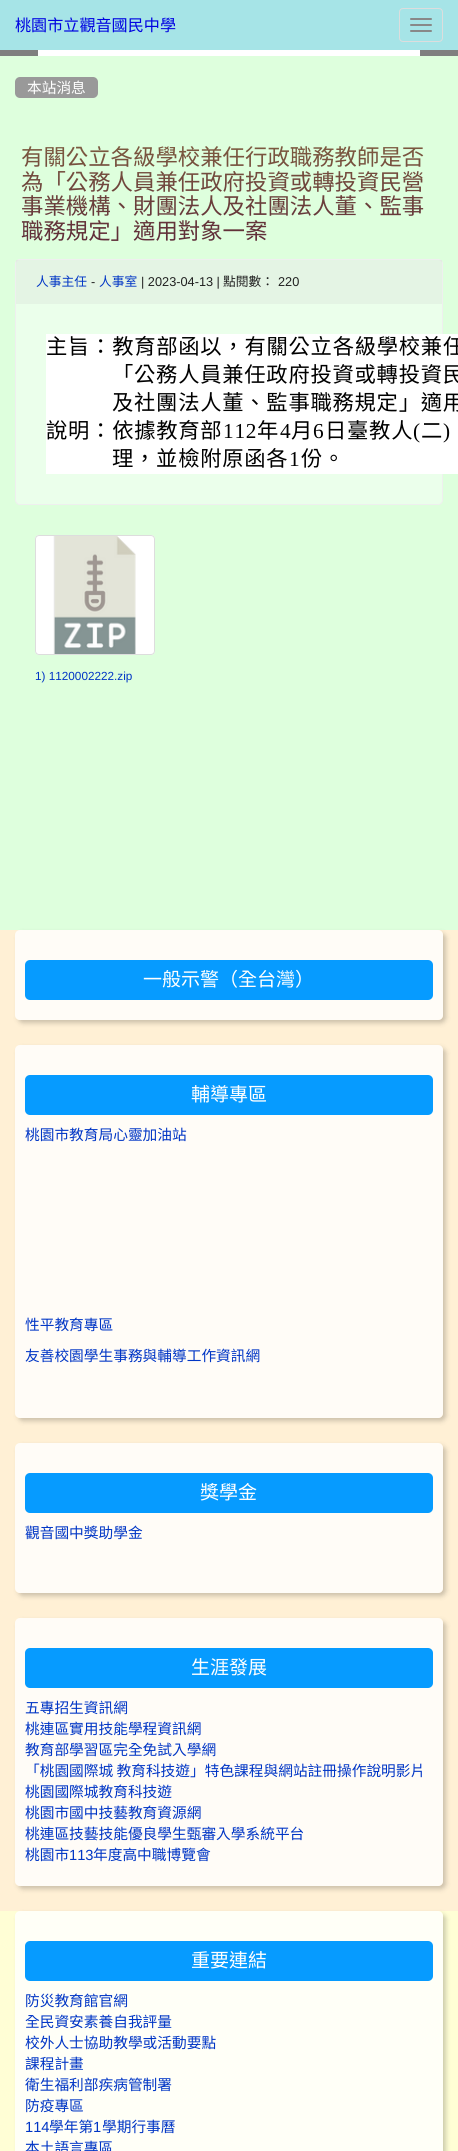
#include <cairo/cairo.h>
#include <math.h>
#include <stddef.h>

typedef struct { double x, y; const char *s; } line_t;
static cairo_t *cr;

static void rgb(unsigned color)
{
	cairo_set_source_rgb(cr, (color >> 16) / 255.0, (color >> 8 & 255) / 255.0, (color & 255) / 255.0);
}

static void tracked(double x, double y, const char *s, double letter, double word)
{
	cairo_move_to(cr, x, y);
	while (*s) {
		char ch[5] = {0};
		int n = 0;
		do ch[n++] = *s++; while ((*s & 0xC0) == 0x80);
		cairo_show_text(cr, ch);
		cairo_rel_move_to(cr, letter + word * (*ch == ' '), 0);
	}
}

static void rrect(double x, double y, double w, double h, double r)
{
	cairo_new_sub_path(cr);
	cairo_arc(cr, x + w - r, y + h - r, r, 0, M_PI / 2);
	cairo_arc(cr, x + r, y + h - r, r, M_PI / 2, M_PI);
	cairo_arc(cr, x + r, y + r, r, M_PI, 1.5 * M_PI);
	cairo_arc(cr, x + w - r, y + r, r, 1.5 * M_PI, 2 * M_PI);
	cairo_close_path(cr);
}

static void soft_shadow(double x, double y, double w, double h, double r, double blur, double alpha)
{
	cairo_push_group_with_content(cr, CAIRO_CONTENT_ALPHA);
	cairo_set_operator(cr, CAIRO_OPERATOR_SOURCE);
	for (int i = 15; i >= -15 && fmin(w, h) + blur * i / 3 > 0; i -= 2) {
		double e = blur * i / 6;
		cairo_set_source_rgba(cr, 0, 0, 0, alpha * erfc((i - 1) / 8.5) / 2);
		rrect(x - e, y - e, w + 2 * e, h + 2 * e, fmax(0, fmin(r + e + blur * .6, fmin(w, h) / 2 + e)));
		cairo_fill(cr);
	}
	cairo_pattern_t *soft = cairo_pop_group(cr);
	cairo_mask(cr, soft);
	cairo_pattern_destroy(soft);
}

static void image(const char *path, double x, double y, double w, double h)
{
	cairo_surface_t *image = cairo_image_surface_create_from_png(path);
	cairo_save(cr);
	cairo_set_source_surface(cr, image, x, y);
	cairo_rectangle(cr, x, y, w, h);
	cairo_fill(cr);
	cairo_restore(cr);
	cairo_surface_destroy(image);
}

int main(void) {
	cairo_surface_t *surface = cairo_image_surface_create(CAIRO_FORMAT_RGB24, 458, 2151);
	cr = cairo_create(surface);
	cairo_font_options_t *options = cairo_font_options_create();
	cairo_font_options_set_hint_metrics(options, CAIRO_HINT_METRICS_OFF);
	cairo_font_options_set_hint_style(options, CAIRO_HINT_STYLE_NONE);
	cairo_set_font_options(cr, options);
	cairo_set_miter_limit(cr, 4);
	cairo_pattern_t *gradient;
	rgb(0xffffff);
	cairo_paint(cr);
	rgb(0xa6e4e7);
	cairo_rectangle(cr, 0, 0, 458, 50);
	cairo_fill(cr);
	rrect(399.5, 8.5, 43, 33, 3.5);
	rgb(0xdddddd);
	cairo_set_line_width(cr, 1);
	cairo_stroke(cr);
	rgb(0x888888);
	rrect(410, 18, 22, 2, 1);
	cairo_fill(cr);
	rrect(410, 24, 22, 2, 1);
	cairo_fill(cr);
	rrect(410, 30, 22, 2, 1);
	cairo_fill(cr);
	image("img/1.png", 0, 50, 38, 6);
	image("img/1.png", 420, 50, 38, 6);
	rgb(0xdeffdd);
	cairo_rectangle(cr, 0, 56, 458, 874);
	cairo_fill(cr);
	rgb(0x999999);
	rrect(15, 77, 83, 21, 5);
	cairo_fill(cr);
	rgb(0xebffeb);
	rrect(15.5, 259.5, 427, 245, 4.5);
	cairo_fill_preserve(cr);
	rgb(0xefefef);
	cairo_stroke(cr);
	cairo_set_source_rgba(cr, 0.784, 0.784, 0.784, 0.2);
	cairo_rectangle(cr, 16, 260, 426, 44);
	cairo_fill(cr);
	rgb(0xffffff);
	cairo_rectangle(cr, 46, 334, 412, 140);
	cairo_fill(cr);
	rrect(35, 535, 120, 120, 4);
	cairo_fill(cr);
	image("img/2.png", 53, 536, 83, 118);
	rrect(35.5, 535.5, 119, 119, 3.5);
	rgb(0xdddddd);
	cairo_stroke(cr);
	rgb(0xfff0d5);
	cairo_rectangle(cr, 0, 930, 458, 981);
	cairo_fill(cr);
	cairo_save(cr);
	cairo_set_fill_rule(cr, CAIRO_FILL_RULE_EVEN_ODD);
	cairo_new_path(cr);
	cairo_move_to(cr, 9, 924);
	cairo_line_to(cr, 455, 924);
	cairo_line_to(cr, 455, 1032);
	cairo_line_to(cr, 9, 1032);
	cairo_close_path(cr);
	cairo_move_to(cr, 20, 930);
	cairo_line_to(cr, 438, 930);
	cairo_curve_to(cr, 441, 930, 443, 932, 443, 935);
	cairo_line_to(cr, 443, 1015);
	cairo_curve_to(cr, 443, 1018, 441, 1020, 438, 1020);
	cairo_line_to(cr, 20, 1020);
	cairo_curve_to(cr, 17, 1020, 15, 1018, 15, 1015);
	cairo_line_to(cr, 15, 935);
	cairo_curve_to(cr, 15, 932, 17, 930, 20, 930);
	cairo_close_path(cr);
	cairo_clip(cr);
	rgb(0x000000);
	soft_shadow(18, 933, 428, 90, 5, 2.5, 0.2);
	cairo_restore(cr);
	cairo_set_source_rgba(cr, 1, 1, 1, 0.8);
	rrect(15, 930, 428, 90, 5);
	cairo_fill(cr);
	rgb(0x069bff);
	rrect(25, 960, 408, 40, 5);
	cairo_fill(cr);
	cairo_save(cr);
	cairo_set_fill_rule(cr, CAIRO_FILL_RULE_EVEN_ODD);
	cairo_new_path(cr);
	cairo_move_to(cr, 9, 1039);
	cairo_line_to(cr, 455, 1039);
	cairo_line_to(cr, 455, 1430);
	cairo_line_to(cr, 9, 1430);
	cairo_close_path(cr);
	cairo_move_to(cr, 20, 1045);
	cairo_line_to(cr, 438, 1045);
	cairo_curve_to(cr, 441, 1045, 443, 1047, 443, 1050);
	cairo_line_to(cr, 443, 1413);
	cairo_curve_to(cr, 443, 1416, 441, 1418, 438, 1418);
	cairo_line_to(cr, 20, 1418);
	cairo_curve_to(cr, 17, 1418, 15, 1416, 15, 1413);
	cairo_line_to(cr, 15, 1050);
	cairo_curve_to(cr, 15, 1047, 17, 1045, 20, 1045);
	cairo_close_path(cr);
	cairo_clip(cr);
	rgb(0x000000);
	soft_shadow(18, 1048, 428, 373, 5, 2.5, 0.2);
	cairo_restore(cr);
	cairo_set_source_rgba(cr, 1, 1, 1, 0.8);
	rrect(15, 1045, 428, 373, 5);
	cairo_fill(cr);
	rgb(0x069bff);
	rrect(25, 1075, 408, 40, 5);
	cairo_fill(cr);
	cairo_save(cr);
	cairo_set_fill_rule(cr, CAIRO_FILL_RULE_EVEN_ODD);
	cairo_new_path(cr);
	cairo_move_to(cr, 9, 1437);
	cairo_line_to(cr, 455, 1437);
	cairo_line_to(cr, 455, 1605);
	cairo_line_to(cr, 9, 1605);
	cairo_close_path(cr);
	cairo_move_to(cr, 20, 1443);
	cairo_line_to(cr, 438, 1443);
	cairo_curve_to(cr, 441, 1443, 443, 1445, 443, 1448);
	cairo_line_to(cr, 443, 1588);
	cairo_curve_to(cr, 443, 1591, 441, 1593, 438, 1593);
	cairo_line_to(cr, 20, 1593);
	cairo_curve_to(cr, 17, 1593, 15, 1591, 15, 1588);
	cairo_line_to(cr, 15, 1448);
	cairo_curve_to(cr, 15, 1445, 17, 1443, 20, 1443);
	cairo_close_path(cr);
	cairo_clip(cr);
	rgb(0x000000);
	soft_shadow(18, 1446, 428, 150, 5, 2.5, 0.2);
	cairo_restore(cr);
	cairo_set_source_rgba(cr, 1, 1, 1, 0.8);
	rrect(15, 1443, 428, 150, 5);
	cairo_fill(cr);
	rgb(0x069bff);
	rrect(25, 1473, 408, 40, 5);
	cairo_fill(cr);
	cairo_save(cr);
	cairo_set_fill_rule(cr, CAIRO_FILL_RULE_EVEN_ODD);
	cairo_new_path(cr);
	cairo_move_to(cr, 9, 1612);
	cairo_line_to(cr, 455, 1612);
	cairo_line_to(cr, 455, 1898);
	cairo_line_to(cr, 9, 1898);
	cairo_close_path(cr);
	cairo_move_to(cr, 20, 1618);
	cairo_line_to(cr, 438, 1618);
	cairo_curve_to(cr, 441, 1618, 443, 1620, 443, 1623);
	cairo_line_to(cr, 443, 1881);
	cairo_curve_to(cr, 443, 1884, 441, 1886, 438, 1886);
	cairo_line_to(cr, 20, 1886);
	cairo_curve_to(cr, 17, 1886, 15, 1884, 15, 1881);
	cairo_line_to(cr, 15, 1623);
	cairo_curve_to(cr, 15, 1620, 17, 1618, 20, 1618);
	cairo_close_path(cr);
	cairo_clip(cr);
	rgb(0x000000);
	soft_shadow(18, 1621, 428, 268, 5, 2.5, 0.2);
	cairo_restore(cr);
	cairo_set_source_rgba(cr, 1, 1, 1, 0.8);
	rrect(15, 1618, 428, 268, 5);
	cairo_fill(cr);
	rgb(0x069bff);
	rrect(25, 1648, 408, 40, 5);
	cairo_fill(cr);
	rgb(0xfffed5);
	cairo_rectangle(cr, 0, 1911, 458, 240);
	cairo_fill(cr);
	cairo_save(cr);
	cairo_set_fill_rule(cr, CAIRO_FILL_RULE_EVEN_ODD);
	cairo_new_path(cr);
	cairo_move_to(cr, 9, 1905);
	cairo_line_to(cr, 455, 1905);
	cairo_line_to(cr, 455, 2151);
	cairo_line_to(cr, 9, 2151);
	cairo_close_path(cr);
	cairo_move_to(cr, 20, 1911);
	cairo_line_to(cr, 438, 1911);
	cairo_curve_to(cr, 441, 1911, 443, 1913, 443, 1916);
	cairo_line_to(cr, 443, 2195);
	cairo_curve_to(cr, 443, 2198, 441, 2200, 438, 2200);
	cairo_line_to(cr, 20, 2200);
	cairo_curve_to(cr, 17, 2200, 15, 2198, 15, 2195);
	cairo_line_to(cr, 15, 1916);
	cairo_curve_to(cr, 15, 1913, 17, 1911, 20, 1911);
	cairo_close_path(cr);
	cairo_clip(cr);
	rgb(0x000000);
	soft_shadow(18, 1914, 428, 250, 5, 2.5, 0.2);
	cairo_restore(cr);
	cairo_set_source_rgba(cr, 1, 1, 1, 0.8);
	rrect(15, 1911, 428, 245, 5);
	cairo_fill(cr);
	rgb(0x069bff);
	rrect(25, 1941, 408, 40, 5);
	cairo_fill(cr);
	cairo_select_font_face(cr, "Noto Sans CJK TC", CAIRO_FONT_SLANT_NORMAL, CAIRO_FONT_WEIGHT_NORMAL);
	cairo_set_font_size(cr, 16.1);
	rgb(0x0002e1);
	cairo_move_to(cr, 15, 31);
	cairo_show_text(cr, "桃園市立觀音國民中學");
	cairo_set_font_size(cr, 14.7);
	rgb(0xffffff);
	cairo_move_to(cr, 27, 93);
	cairo_show_text(cr, "本站消息");
	cairo_set_font_size(cr, 22.4);
	gradient = cairo_pattern_create_linear(229, 139, 229, 249);
	cairo_pattern_add_color_stop_rgba(gradient, 0, 0.494, 0.361, 0.251, 1);
	cairo_pattern_add_color_stop_rgba(gradient, 1, 0.361, 0.161, 0.22, 1);
	cairo_set_source(cr, gradient);
	cairo_pattern_destroy(gradient);
	{
		static const line_t items[] = {
			{21, 165, "有關公立各級學校兼任行政職務教師是否"},
			{21, 190, "為「公務人員兼任政府投資或轉投資民營"},
			{21, 214, "事業機構、財團法人及社團法人董、監事"},
			{21, 239, "職務規定」適用對象一案"},
		};
		for (size_t i = 0; i < sizeof items / sizeof *items; i++) {
			cairo_move_to(cr, items[i].x, items[i].y);
			cairo_show_text(cr, items[i].s);
		}
	}
	cairo_set_font_size(cr, 12.75);
	rgb(0x0035c5);
	cairo_move_to(cr, 36, 286);
	cairo_show_text(cr, "人事主任");
	cairo_select_font_face(cr, "Liberation Sans", CAIRO_FONT_SLANT_NORMAL, CAIRO_FONT_WEIGHT_NORMAL);
	rgb(0x202020);
	cairo_move_to(cr, 91, 286);
	cairo_show_text(cr, "-");
	cairo_select_font_face(cr, "Noto Sans CJK TC", CAIRO_FONT_SLANT_NORMAL, CAIRO_FONT_WEIGHT_NORMAL);
	rgb(0x0035c5);
	cairo_move_to(cr, 99, 286);
	cairo_show_text(cr, "人事室");
	cairo_select_font_face(cr, "Liberation Sans", CAIRO_FONT_SLANT_NORMAL, CAIRO_FONT_WEIGHT_NORMAL);
	rgb(0x202020);
	cairo_move_to(cr, 141, 286);
	cairo_show_text(cr, "| 2023-04-13 |");
	cairo_select_font_face(cr, "Noto Sans CJK TC", CAIRO_FONT_SLANT_NORMAL, CAIRO_FONT_WEIGHT_NORMAL);
	cairo_move_to(cr, 223, 286);
	cairo_show_text(cr, "點閱數：");
	cairo_select_font_face(cr, "Liberation Sans", CAIRO_FONT_SLANT_NORMAL, CAIRO_FONT_WEIGHT_NORMAL);
	cairo_move_to(cr, 278, 286);
	cairo_show_text(cr, "220");
	cairo_select_font_face(cr, "Noto Sans CJK TC", CAIRO_FONT_SLANT_NORMAL, CAIRO_FONT_WEIGHT_NORMAL);
	cairo_set_font_size(cr, 21.3);
	rgb(0x000000);
	{
		static const line_t items[] = {
			{46, 354, "主旨：教育部函以，有關公立各級學校兼任"},
			{112, 382, "「公務人員兼任政府投資或轉投資民"},
			{112, 410, "及社團法人董、監事職務規定」適用"},
			{46, 438, "說明：依據教育部"},
		};
		for (size_t i = 0; i < sizeof items / sizeof *items; i++) {
			tracked(items[i].x, items[i].y, items[i].s, 0.75, 0);
		}
	}
	cairo_select_font_face(cr, "Liberation Serif", CAIRO_FONT_SLANT_NORMAL, CAIRO_FONT_WEIGHT_NORMAL);
	tracked(223, 438, "112", 0.75, 0);
	cairo_select_font_face(cr, "Noto Sans CJK TC", CAIRO_FONT_SLANT_NORMAL, CAIRO_FONT_WEIGHT_NORMAL);
	tracked(257, 438, "年", 0.75, 0);
	cairo_select_font_face(cr, "Liberation Serif", CAIRO_FONT_SLANT_NORMAL, CAIRO_FONT_WEIGHT_NORMAL);
	tracked(280, 438, "4", 0.75, 0);
	cairo_select_font_face(cr, "Noto Sans CJK TC", CAIRO_FONT_SLANT_NORMAL, CAIRO_FONT_WEIGHT_NORMAL);
	tracked(291, 438, "月", 0.75, 0);
	cairo_select_font_face(cr, "Liberation Serif", CAIRO_FONT_SLANT_NORMAL, CAIRO_FONT_WEIGHT_NORMAL);
	tracked(313, 438, "6", 0.75, 0);
	cairo_select_font_face(cr, "Noto Sans CJK TC", CAIRO_FONT_SLANT_NORMAL, CAIRO_FONT_WEIGHT_NORMAL);
	tracked(325, 438, "日臺教人", 0.75, 0);
	cairo_select_font_face(cr, "Liberation Serif", CAIRO_FONT_SLANT_NORMAL, CAIRO_FONT_WEIGHT_NORMAL);
	tracked(413, 438, "(", 0.75, 0);
	cairo_select_font_face(cr, "Noto Sans CJK TC", CAIRO_FONT_SLANT_NORMAL, CAIRO_FONT_WEIGHT_NORMAL);
	tracked(421, 438, "二", 0.75, 0);
	cairo_select_font_face(cr, "Liberation Serif", CAIRO_FONT_SLANT_NORMAL, CAIRO_FONT_WEIGHT_NORMAL);
	tracked(443, 438, ")", 0.75, 0);
	cairo_select_font_face(cr, "Noto Sans CJK TC", CAIRO_FONT_SLANT_NORMAL, CAIRO_FONT_WEIGHT_NORMAL);
	tracked(112, 466, "理，並檢附原函各", 0.75, 0);
	cairo_select_font_face(cr, "Liberation Serif", CAIRO_FONT_SLANT_NORMAL, CAIRO_FONT_WEIGHT_NORMAL);
	tracked(289, 466, "1", 0.75, 0);
	cairo_select_font_face(cr, "Noto Sans CJK TC", CAIRO_FONT_SLANT_NORMAL, CAIRO_FONT_WEIGHT_NORMAL);
	tracked(301, 466, "份。", 0.75, 0);
	cairo_select_font_face(cr, "Liberation Sans", CAIRO_FONT_SLANT_NORMAL, CAIRO_FONT_WEIGHT_NORMAL);
	cairo_set_font_size(cr, 11.75);
	rgb(0x0035c5);
	cairo_move_to(cr, 35, 680);
	cairo_show_text(cr, "1) 1120002222.zip");
	cairo_select_font_face(cr, "Noto Sans CJK TC", CAIRO_FONT_SLANT_NORMAL, CAIRO_FONT_WEIGHT_NORMAL);
	cairo_set_font_size(cr, 19);
	rgb(0xffffff);
	cairo_move_to(cr, 143, 986);
	cairo_show_text(cr, "一般示警（全台灣）");
	cairo_move_to(cr, 191, 1101);
	cairo_show_text(cr, "輔導專區");
	cairo_set_font_size(cr, 14.7);
	rgb(0x0035c5);
	{
		static const line_t items[] = {
			{25, 1140, "桃園市教育局心靈加油站"},
			{25, 1330, "性平教育專區"},
			{25, 1361, "友善校園學生事務與輔導工作資訊網"},
		};
		for (size_t i = 0; i < sizeof items / sizeof *items; i++) {
			cairo_move_to(cr, items[i].x, items[i].y);
			cairo_show_text(cr, items[i].s);
		}
	}
	cairo_set_font_size(cr, 19);
	rgb(0xffffff);
	cairo_move_to(cr, 200, 1499);
	cairo_show_text(cr, "獎學金");
	cairo_set_font_size(cr, 14.7);
	rgb(0x0035c5);
	cairo_move_to(cr, 25, 1538);
	cairo_show_text(cr, "觀音國中獎助學金");
	cairo_set_font_size(cr, 19);
	rgb(0xffffff);
	cairo_move_to(cr, 191, 1674);
	cairo_show_text(cr, "生涯發展");
	cairo_set_font_size(cr, 14.7);
	rgb(0x0035c5);
	{
		static const line_t items[] = {
			{25, 1713, "五專招生資訊網"},
			{25, 1734, "桃連區實用技能學程資訊網"},
			{25, 1755, "教育部學習區完全免試入學網"},
			{25, 1776, "「桃園國際城 教育科技遊」特色課程與網站註冊操作說明影片"},
			{25, 1797, "桃園國際城教育科技遊"},
			{25, 1818, "桃園市國中技藝教育資源網"},
			{25, 1839, "桃連區技藝技能優良學生甄審入學系統平台"},
			{25, 1860, "桃園市"},
		};
		for (size_t i = 0; i < sizeof items / sizeof *items; i++) {
			cairo_move_to(cr, items[i].x, items[i].y);
			cairo_show_text(cr, items[i].s);
		}
	}
	cairo_select_font_face(cr, "Liberation Sans", CAIRO_FONT_SLANT_NORMAL, CAIRO_FONT_WEIGHT_NORMAL);
	cairo_move_to(cr, 69, 1860);
	cairo_show_text(cr, "113");
	cairo_select_font_face(cr, "Noto Sans CJK TC", CAIRO_FONT_SLANT_NORMAL, CAIRO_FONT_WEIGHT_NORMAL);
	cairo_move_to(cr, 93, 1860);
	cairo_show_text(cr, "年度高中職博覽會");
	cairo_set_font_size(cr, 19);
	rgb(0xffffff);
	cairo_move_to(cr, 191, 1967);
	cairo_show_text(cr, "重要連結");
	cairo_set_font_size(cr, 14.7);
	rgb(0x0035c5);
	{
		static const line_t items[] = {
			{25, 2006, "防災教育館官網"},
			{25, 2027, "全民資安素養自我評量"},
			{25, 2048, "校外人士協助教學或活動要點"},
			{25, 2069, "課程計畫"},
			{25, 2090, "衛生福利部疾病管制署"},
			{25, 2111, "防疫專區"},
		};
		for (size_t i = 0; i < sizeof items / sizeof *items; i++) {
			cairo_move_to(cr, items[i].x, items[i].y);
			cairo_show_text(cr, items[i].s);
		}
	}
	cairo_select_font_face(cr, "Liberation Sans", CAIRO_FONT_SLANT_NORMAL, CAIRO_FONT_WEIGHT_NORMAL);
	cairo_move_to(cr, 25, 2132);
	cairo_show_text(cr, "114");
	cairo_select_font_face(cr, "Noto Sans CJK TC", CAIRO_FONT_SLANT_NORMAL, CAIRO_FONT_WEIGHT_NORMAL);
	cairo_move_to(cr, 49, 2132);
	cairo_show_text(cr, "學年第");
	cairo_select_font_face(cr, "Liberation Sans", CAIRO_FONT_SLANT_NORMAL, CAIRO_FONT_WEIGHT_NORMAL);
	cairo_move_to(cr, 93, 2132);
	cairo_show_text(cr, "1");
	cairo_select_font_face(cr, "Noto Sans CJK TC", CAIRO_FONT_SLANT_NORMAL, CAIRO_FONT_WEIGHT_NORMAL);
	cairo_move_to(cr, 102, 2132);
	cairo_show_text(cr, "學期行事曆");
	cairo_move_to(cr, 25, 2153);
	cairo_show_text(cr, "本土語言專區");
	cairo_surface_write_to_png(surface, "page.png");
	cairo_font_options_destroy(options);
	cairo_destroy(cr);
	cairo_surface_destroy(surface);
	return 0;
}
